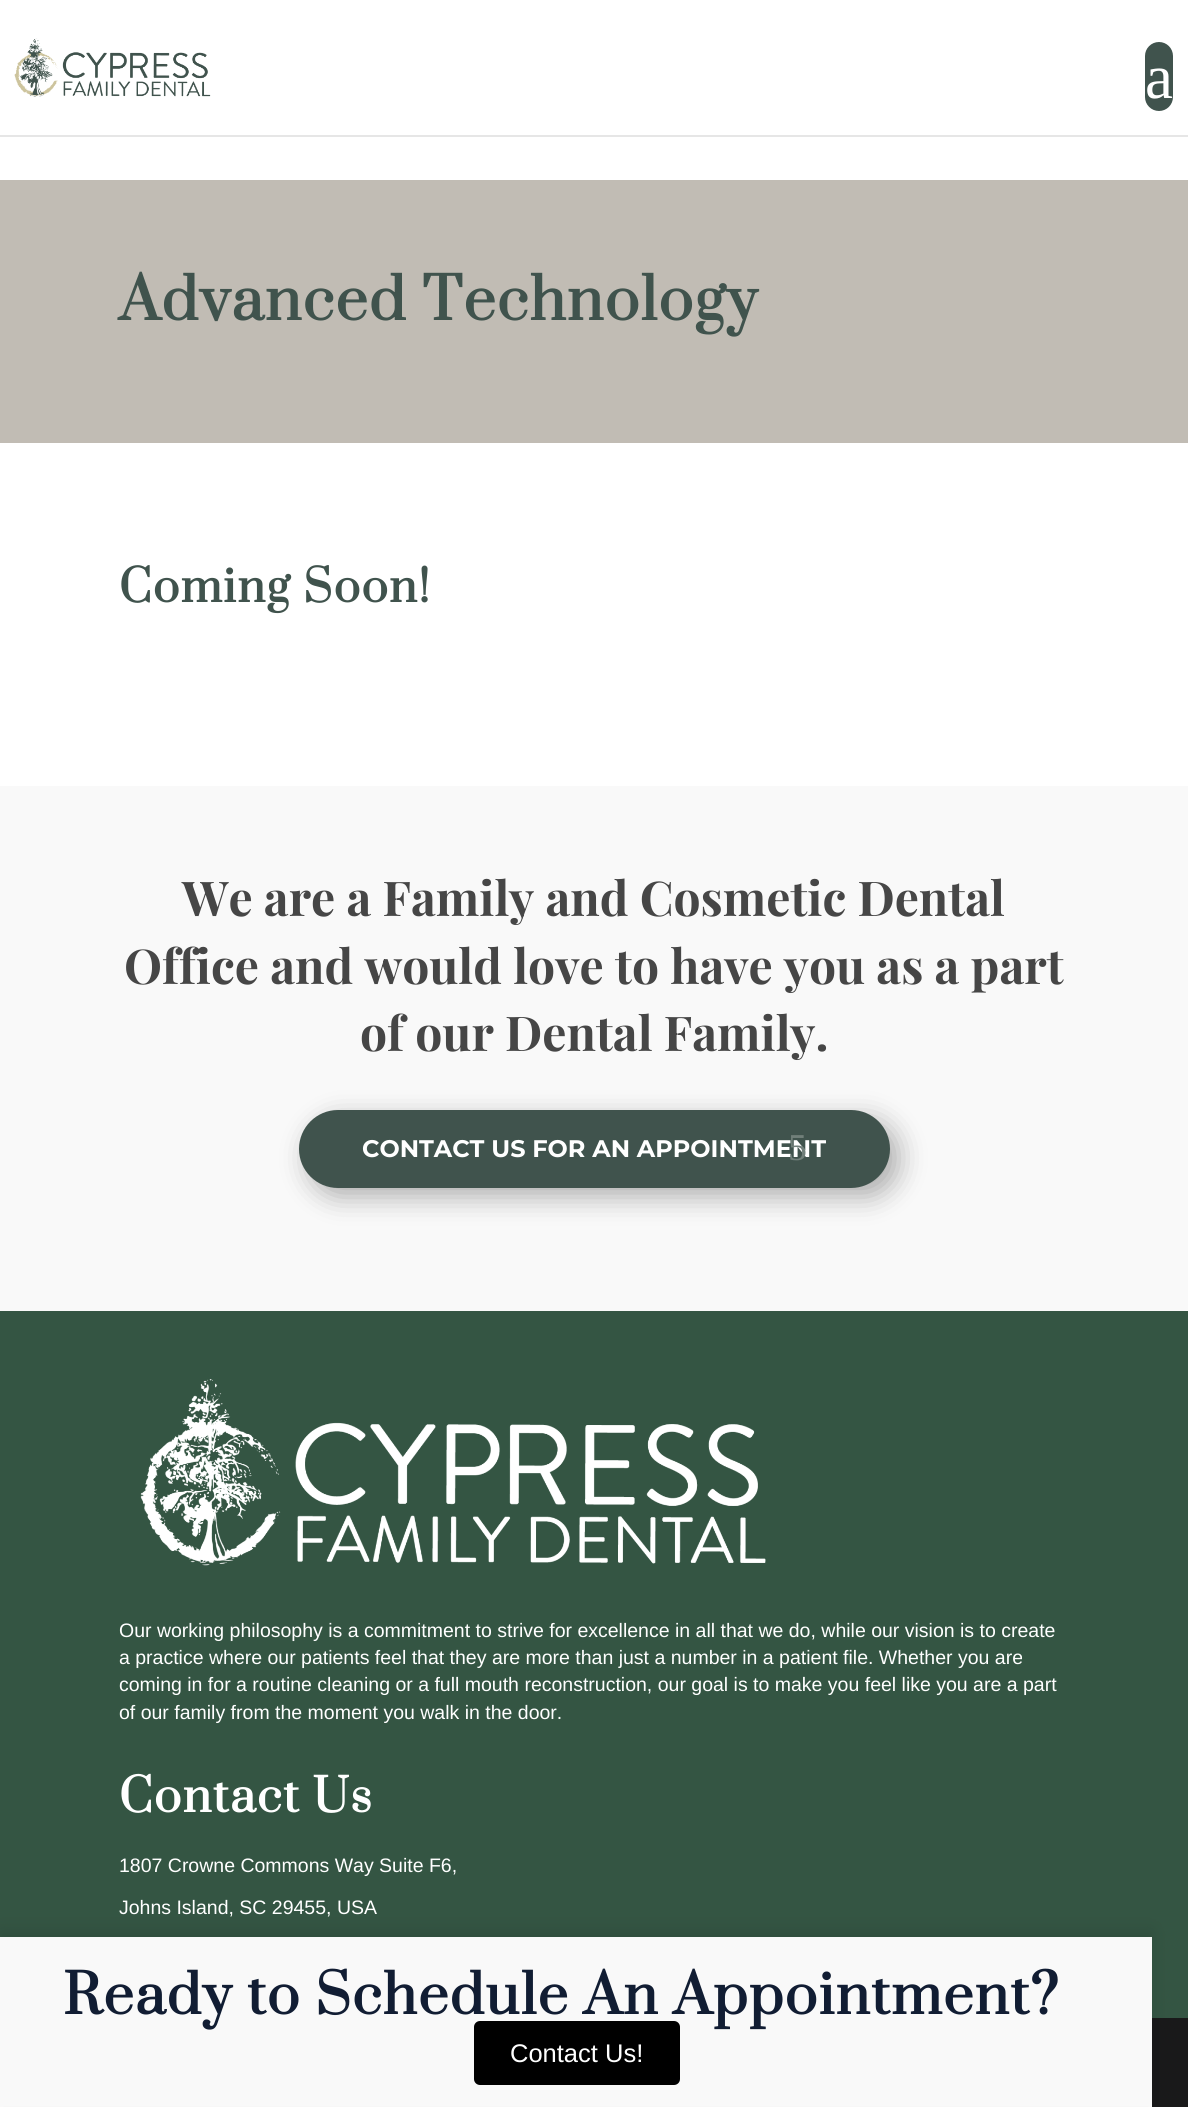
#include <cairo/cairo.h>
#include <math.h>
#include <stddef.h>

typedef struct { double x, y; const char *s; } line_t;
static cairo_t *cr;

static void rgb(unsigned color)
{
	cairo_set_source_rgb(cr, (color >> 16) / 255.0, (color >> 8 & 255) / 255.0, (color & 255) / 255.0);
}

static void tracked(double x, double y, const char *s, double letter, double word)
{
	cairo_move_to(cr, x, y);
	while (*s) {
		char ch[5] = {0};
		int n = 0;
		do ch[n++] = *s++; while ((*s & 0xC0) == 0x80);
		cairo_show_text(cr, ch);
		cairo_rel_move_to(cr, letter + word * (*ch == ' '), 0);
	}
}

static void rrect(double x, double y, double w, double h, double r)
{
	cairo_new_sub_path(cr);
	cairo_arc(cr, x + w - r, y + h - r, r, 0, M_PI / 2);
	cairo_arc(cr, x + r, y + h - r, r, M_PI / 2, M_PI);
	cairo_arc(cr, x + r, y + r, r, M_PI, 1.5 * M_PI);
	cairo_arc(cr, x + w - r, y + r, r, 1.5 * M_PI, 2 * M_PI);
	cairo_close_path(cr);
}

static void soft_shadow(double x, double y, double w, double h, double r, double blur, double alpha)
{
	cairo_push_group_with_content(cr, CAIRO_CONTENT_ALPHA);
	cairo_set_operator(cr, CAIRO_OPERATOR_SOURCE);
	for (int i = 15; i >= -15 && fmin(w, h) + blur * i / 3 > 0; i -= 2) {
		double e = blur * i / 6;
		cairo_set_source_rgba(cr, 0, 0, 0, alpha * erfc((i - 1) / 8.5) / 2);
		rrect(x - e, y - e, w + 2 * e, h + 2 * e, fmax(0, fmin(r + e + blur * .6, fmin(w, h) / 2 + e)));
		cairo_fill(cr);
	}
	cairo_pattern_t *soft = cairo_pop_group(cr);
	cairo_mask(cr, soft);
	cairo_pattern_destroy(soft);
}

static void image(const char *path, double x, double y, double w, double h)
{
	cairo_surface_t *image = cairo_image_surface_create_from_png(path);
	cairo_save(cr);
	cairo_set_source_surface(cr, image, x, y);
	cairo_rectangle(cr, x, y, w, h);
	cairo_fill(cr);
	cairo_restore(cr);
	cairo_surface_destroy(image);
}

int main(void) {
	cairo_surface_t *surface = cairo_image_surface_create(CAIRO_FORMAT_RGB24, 1188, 2107);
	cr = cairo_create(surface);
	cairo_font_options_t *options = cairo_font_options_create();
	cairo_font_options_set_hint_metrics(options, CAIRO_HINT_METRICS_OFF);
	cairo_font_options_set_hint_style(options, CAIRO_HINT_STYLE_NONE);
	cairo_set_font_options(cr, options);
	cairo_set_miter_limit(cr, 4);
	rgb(0xffffff);
	cairo_paint(cr);
	rgb(0xe6e6e6);
	cairo_rectangle(cr, 0, 135, 1188, 2);
	cairo_fill(cr);
	image("img/1.png", 14, 38, 197, 59);
	rgb(0x40534d);
	rrect(1145, 42, 28, 69, 14);
	cairo_fill(cr);
	rgb(0xc1bcb4);
	cairo_rectangle(cr, 0, 180, 1188, 263);
	cairo_fill(cr);
	rgb(0xf9f9f9);
	cairo_rectangle(cr, 0, 786, 1188, 525);
	cairo_fill(cr);
	rgb(0x000000);
	soft_shadow(308, 1119, 591, 78, 39, 13.5, 0.3);
	rgb(0x40534d);
	rrect(299, 1110, 591, 78, 39);
	cairo_fill(cr);
	rgb(0x345543);
	cairo_rectangle(cr, 0, 1311, 1188, 707);
	cairo_fill(cr);
	image("img/2.png", 140, 1379, 626, 187);
	rgb(0x19191a);
	cairo_rectangle(cr, 1152, 2018, 36, 89);
	cairo_fill(cr);
	rgb(0x000000);
	soft_shadow(0, 1931, 1152, 171, 0, 9, 0.1);
	rgb(0xf9f9f9);
	cairo_rectangle(cr, 0, 1937, 1152, 169);
	cairo_fill(cr);
	cairo_select_font_face(cr, "Liberation Serif", CAIRO_FONT_SLANT_NORMAL, CAIRO_FONT_WEIGHT_NORMAL);
	cairo_set_font_size(cr, 63);
	rgb(0xffffff);
	cairo_move_to(cr, 1145, 98);
	cairo_show_text(cr, "a");
	cairo_select_font_face(cr, "Prata", CAIRO_FONT_SLANT_NORMAL, CAIRO_FONT_WEIGHT_BOLD);
	cairo_set_font_size(cr, 57);
	rgb(0x40534d);
	tracked(119, 320, "Advanced Technology", 1.5, 0);
	cairo_set_font_size(cr, 43.5);
	tracked(119, 602, "Coming Soon!", 1.5, 0);
	cairo_select_font_face(cr, "Playfair Display", CAIRO_FONT_SLANT_NORMAL, CAIRO_FONT_WEIGHT_BOLD);
	cairo_set_font_size(cr, 48);
	rgb(0x464646);
	{
		static const line_t items[] = {
			{182, 916, "We are a Family and Cosmetic Dental"},
			{124, 984, "Office and would love to have you as a part"},
			{360, 1051, "of our Dental Family."},
		};
		for (size_t i = 0; i < sizeof items / sizeof *items; i++) {
			cairo_move_to(cr, items[i].x, items[i].y);
			cairo_show_text(cr, items[i].s);
		}
	}
	cairo_select_font_face(cr, "Montserrat Thin", CAIRO_FONT_SLANT_NORMAL, CAIRO_FONT_WEIGHT_NORMAL);
	cairo_set_font_size(cr, 24);
	rgb(0xffffff);
	cairo_move_to(cr, 362, 1157);
	cairo_show_text(cr, "CONTACT US FOR AN APPOINTMENT");
	cairo_select_font_face(cr, "Liberation Serif", CAIRO_FONT_SLANT_NORMAL, CAIRO_FONT_WEIGHT_NORMAL);
	cairo_set_font_size(cr, 38);
	rgb(0x717f7a);
	cairo_move_to(cr, 788, 1160);
	cairo_show_text(cr, "5");
	cairo_select_font_face(cr, "Liberation Sans", CAIRO_FONT_SLANT_NORMAL, CAIRO_FONT_WEIGHT_NORMAL);
	cairo_set_font_size(cr, 19.5);
	rgb(0xffffff);
	{
		static const line_t items[] = {
			{119, 1637, "Our working philosophy is a commitment to strive for excellence in all that we do, while our vision is to create"},
			{119, 1664, "a practice where our patients feel that they are more than just a number in a patient file. Whether you are"},
			{119, 1691, "coming in for a routine cleaning or a full mouth reconstruction, our goal is to make you feel like you are a part"},
			{119, 1719, "of our family from the moment you walk in the door."},
		};
		for (size_t i = 0; i < sizeof items / sizeof *items; i++) {
			cairo_move_to(cr, items[i].x, items[i].y);
			cairo_show_text(cr, items[i].s);
		}
	}
	cairo_select_font_face(cr, "Prata", CAIRO_FONT_SLANT_NORMAL, CAIRO_FONT_WEIGHT_BOLD);
	cairo_set_font_size(cr, 45);
	tracked(119, 1812, "Contact Us", 1.5, 0);
	cairo_select_font_face(cr, "Liberation Sans", CAIRO_FONT_SLANT_NORMAL, CAIRO_FONT_WEIGHT_NORMAL);
	cairo_set_font_size(cr, 19.5);
	cairo_move_to(cr, 119, 1872);
	cairo_show_text(cr, "1807 Crowne Commons Way Suite F6,");
	cairo_move_to(cr, 119, 1914);
	cairo_show_text(cr, "Johns Island, SC 29455, USA");
	cairo_select_font_face(cr, "Prata", CAIRO_FONT_SLANT_NORMAL, CAIRO_FONT_WEIGHT_BOLD);
	cairo_set_font_size(cr, 53.5);
	rgb(0x111d33);
	tracked(63, 2014, "Ready to Schedule An Appointment?", 1.5, 0);
	rgb(0x000000);
	rrect(474, 2021, 206, 64, 6);
	cairo_fill(cr);
	cairo_select_font_face(cr, "Liberation Sans", CAIRO_FONT_SLANT_NORMAL, CAIRO_FONT_WEIGHT_NORMAL);
	cairo_set_font_size(cr, 25.5);
	rgb(0xffffff);
	cairo_move_to(cr, 510, 2062);
	cairo_show_text(cr, "Contact Us!");
	cairo_surface_write_to_png(surface, "page.png");
	cairo_font_options_destroy(options);
	cairo_destroy(cr);
	cairo_surface_destroy(surface);
	return 0;
}
